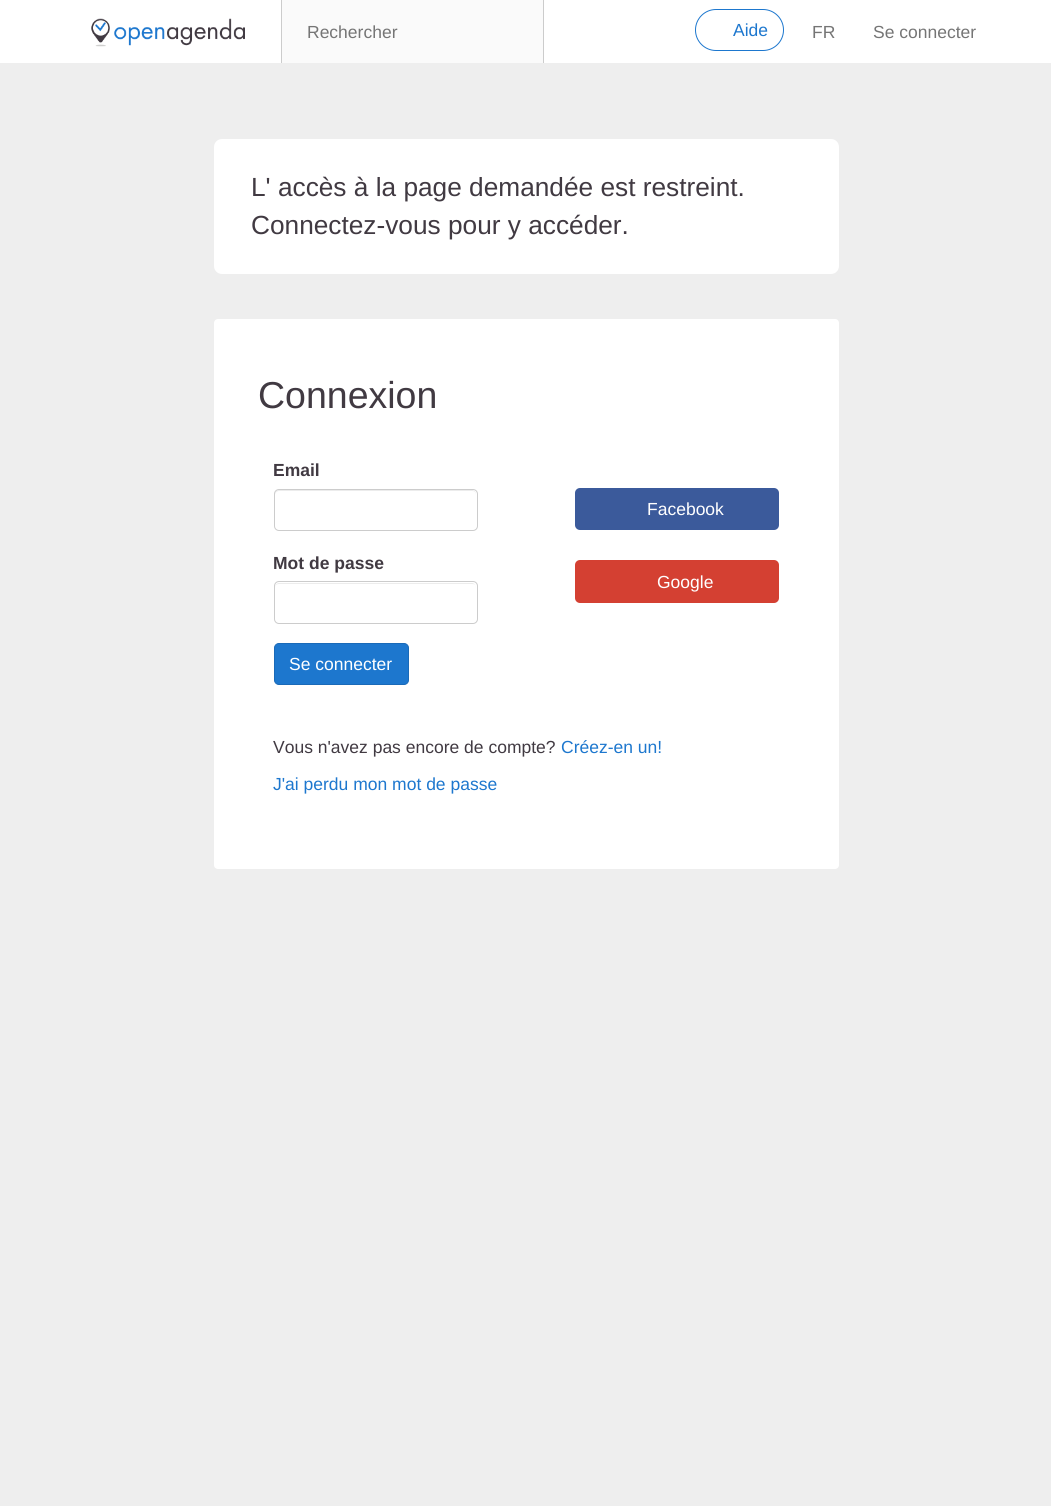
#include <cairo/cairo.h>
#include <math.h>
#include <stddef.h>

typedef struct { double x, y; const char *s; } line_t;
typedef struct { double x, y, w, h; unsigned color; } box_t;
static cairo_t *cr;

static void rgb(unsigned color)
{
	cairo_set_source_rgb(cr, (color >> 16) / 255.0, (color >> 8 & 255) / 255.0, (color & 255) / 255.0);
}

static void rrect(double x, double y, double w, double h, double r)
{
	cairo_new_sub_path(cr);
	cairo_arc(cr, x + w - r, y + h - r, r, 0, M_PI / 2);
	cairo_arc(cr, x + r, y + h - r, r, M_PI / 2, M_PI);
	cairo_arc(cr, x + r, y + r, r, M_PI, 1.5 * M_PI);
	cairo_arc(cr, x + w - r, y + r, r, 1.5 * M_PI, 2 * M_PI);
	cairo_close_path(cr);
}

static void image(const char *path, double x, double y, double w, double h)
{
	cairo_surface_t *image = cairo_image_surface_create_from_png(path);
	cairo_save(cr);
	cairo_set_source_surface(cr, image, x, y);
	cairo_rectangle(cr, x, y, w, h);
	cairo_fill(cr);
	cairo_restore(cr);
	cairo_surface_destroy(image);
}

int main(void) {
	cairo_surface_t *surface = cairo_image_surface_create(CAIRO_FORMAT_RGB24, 1051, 1506);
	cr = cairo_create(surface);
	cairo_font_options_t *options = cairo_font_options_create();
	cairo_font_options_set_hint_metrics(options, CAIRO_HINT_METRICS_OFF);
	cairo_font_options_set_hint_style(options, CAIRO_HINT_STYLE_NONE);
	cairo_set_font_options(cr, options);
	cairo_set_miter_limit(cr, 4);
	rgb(0xeeeeee);
	cairo_paint(cr);
	rgb(0xffffff);
	cairo_rectangle(cr, 0, 0, 1051, 63);
	cairo_fill(cr);
	image("img/1.png", 91, 18, 154, 29);
	{
		static const box_t items[] = {
			{282, 0, 261, 63, 0xfafafa},
			{281, 0, 1, 63, 0xcccccc},
			{543, 0, 1, 63, 0xcccccc},
		};
		for (size_t i = 0; i < sizeof items / sizeof *items; i++) {
			rgb(items[i].color);
			cairo_rectangle(cr, items[i].x, items[i].y, items[i].w, items[i].h);
			cairo_fill(cr);
		}
	}
	rrect(695.5, 9.5, 88, 41, 20.5);
	rgb(0x1d77ce);
	cairo_set_line_width(cr, 1);
	cairo_stroke(cr);
	rgb(0xffffff);
	rrect(214, 139, 625, 135, 8);
	cairo_fill(cr);
	rrect(214, 319, 625, 550, 4);
	cairo_fill(cr);
	rgb(0xececec);
	cairo_new_path(cr);
	cairo_move_to(cr, 279, 491);
	cairo_line_to(cr, 472, 491);
	cairo_curve_to(cr, 475, 491, 476, 493, 476, 495);
	cairo_line_to(cr, 476, 494);
	cairo_curve_to(cr, 476, 492, 474, 490, 472, 490);
	cairo_line_to(cr, 279, 490);
	cairo_curve_to(cr, 277, 490, 275, 492, 275, 494);
	cairo_line_to(cr, 275, 495);
	cairo_curve_to(cr, 275, 493, 277, 491, 279, 491);
	cairo_close_path(cr);
	cairo_fill(cr);
	rrect(274.5, 489.5, 203, 41, 4.5);
	rgb(0xcccccc);
	cairo_stroke(cr);
	rgb(0xececec);
	cairo_new_path(cr);
	cairo_move_to(cr, 279, 584);
	cairo_line_to(cr, 472, 584);
	cairo_curve_to(cr, 475, 584, 476, 585, 476, 588);
	cairo_line_to(cr, 476, 587);
	cairo_curve_to(cr, 476, 585, 474, 583, 472, 583);
	cairo_line_to(cr, 279, 583);
	cairo_curve_to(cr, 277, 583, 275, 585, 275, 587);
	cairo_line_to(cr, 275, 588);
	cairo_curve_to(cr, 275, 585, 277, 584, 279, 584);
	cairo_close_path(cr);
	cairo_fill(cr);
	rrect(274.5, 581.5, 203, 42, 4.5);
	rgb(0xcccccc);
	cairo_stroke(cr);
	rgb(0x1d77ce);
	rrect(274.5, 643.5, 134, 41, 4.5);
	cairo_fill_preserve(cr);
	rgb(0x1a6ab8);
	cairo_stroke(cr);
	rgb(0x3b5a9b);
	rrect(575, 488, 204, 42, 5);
	cairo_fill(cr);
	rgb(0xd44032);
	rrect(575, 560, 204, 43, 5);
	cairo_fill(cr);
	cairo_select_font_face(cr, "Liberation Sans", CAIRO_FONT_SLANT_NORMAL, CAIRO_FONT_WEIGHT_NORMAL);
	cairo_set_font_size(cr, 17.5);
	rgb(0x757575);
	cairo_move_to(cr, 307, 38);
	cairo_show_text(cr, "Rechercher");
	rgb(0x1d77ce);
	cairo_move_to(cr, 733, 36);
	cairo_show_text(cr, "Aide");
	rgb(0x757575);
	cairo_move_to(cr, 812, 38);
	cairo_show_text(cr, "FR");
	cairo_move_to(cr, 873, 38);
	cairo_show_text(cr, "Se connecter");
	cairo_set_font_size(cr, 26.25);
	rgb(0x413a42);
	cairo_move_to(cr, 251, 196);
	cairo_show_text(cr, "L' accès à la page demandée est restreint.");
	cairo_move_to(cr, 251, 234);
	cairo_show_text(cr, "Connectez-vous pour y accéder.");
	cairo_set_font_size(cr, 37.5);
	cairo_move_to(cr, 258, 408);
	cairo_show_text(cr, "Connexion");
	cairo_select_font_face(cr, "Liberation Sans", CAIRO_FONT_SLANT_NORMAL, CAIRO_FONT_WEIGHT_BOLD);
	cairo_set_font_size(cr, 17.5);
	cairo_move_to(cr, 273, 476);
	cairo_show_text(cr, "Email");
	cairo_move_to(cr, 273, 569);
	cairo_show_text(cr, "Mot de passe");
	cairo_select_font_face(cr, "Liberation Sans", CAIRO_FONT_SLANT_NORMAL, CAIRO_FONT_WEIGHT_NORMAL);
	rgb(0xffffff);
	{
		static const line_t items[] = {
			{289, 670, "Se connecter"},
			{647, 515, "Facebook"},
			{657, 588, "Google"},
		};
		for (size_t i = 0; i < sizeof items / sizeof *items; i++) {
			cairo_move_to(cr, items[i].x, items[i].y);
			cairo_show_text(cr, items[i].s);
		}
	}
	rgb(0x413a42);
	cairo_move_to(cr, 273, 753);
	cairo_show_text(cr, "Vous n'avez pas encore de compte?");
	rgb(0x1d77ce);
	cairo_move_to(cr, 561, 753);
	cairo_show_text(cr, "Créez-en un!");
	cairo_move_to(cr, 273, 790);
	cairo_show_text(cr, "J'ai perdu mon mot de passe");
	cairo_surface_write_to_png(surface, "page.png");
	cairo_font_options_destroy(options);
	cairo_destroy(cr);
	cairo_surface_destroy(surface);
	return 0;
}
